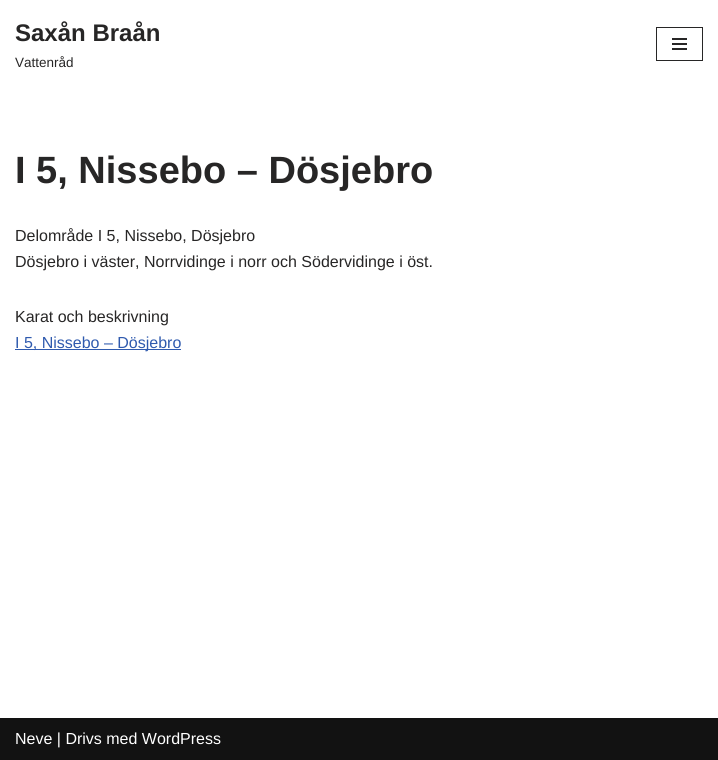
#include <cairo/cairo.h>
#include <math.h>
#include <stddef.h>

typedef struct { double x, y; const char *s; } line_t;
typedef struct { double x, y, w, h; unsigned color; } box_t;
static cairo_t *cr;

static void rgb(unsigned color)
{
	cairo_set_source_rgb(cr, (color >> 16) / 255.0, (color >> 8 & 255) / 255.0, (color & 255) / 255.0);
}

int main(void) {
	cairo_surface_t *surface = cairo_image_surface_create(CAIRO_FORMAT_RGB24, 718, 760);
	cr = cairo_create(surface);
	cairo_font_options_t *options = cairo_font_options_create();
	cairo_font_options_set_hint_metrics(options, CAIRO_HINT_METRICS_OFF);
	cairo_font_options_set_hint_style(options, CAIRO_HINT_STYLE_NONE);
	cairo_set_font_options(cr, options);
	cairo_set_miter_limit(cr, 4);
	rgb(0xffffff);
	cairo_paint(cr);
	cairo_rectangle(cr, 656.5, 27.5, 46, 33);
	rgb(0x272626);
	cairo_set_line_width(cr, 1);
	cairo_stroke(cr);
	{
		static const box_t items[] = {
			{672, 38, 15, 2, 0x272626},
			{672, 43, 15, 2, 0x272626},
			{672, 48, 15, 2, 0x272626},
			{15, 349, 166, 1, 0x2f5aae},
			{0, 718, 718, 42, 0x121212},
		};
		for (size_t i = 0; i < sizeof items / sizeof *items; i++) {
			rgb(items[i].color);
			cairo_rectangle(cr, items[i].x, items[i].y, items[i].w, items[i].h);
			cairo_fill(cr);
		}
	}
	cairo_select_font_face(cr, "Liberation Sans", CAIRO_FONT_SLANT_NORMAL, CAIRO_FONT_WEIGHT_BOLD);
	cairo_set_font_size(cr, 24);
	rgb(0x272626);
	cairo_move_to(cr, 15, 41);
	cairo_show_text(cr, "Saxån Braån");
	cairo_select_font_face(cr, "Liberation Sans", CAIRO_FONT_SLANT_NORMAL, CAIRO_FONT_WEIGHT_NORMAL);
	cairo_set_font_size(cr, 13.5);
	cairo_move_to(cr, 15, 67);
	cairo_show_text(cr, "Vattenråd");
	cairo_select_font_face(cr, "Liberation Sans", CAIRO_FONT_SLANT_NORMAL, CAIRO_FONT_WEIGHT_BOLD);
	cairo_set_font_size(cr, 38);
	cairo_move_to(cr, 15, 183);
	cairo_show_text(cr, "I 5, Nissebo – Dösjebro");
	cairo_select_font_face(cr, "Liberation Sans", CAIRO_FONT_SLANT_NORMAL, CAIRO_FONT_WEIGHT_NORMAL);
	cairo_set_font_size(cr, 16);
	{
		static const line_t items[] = {
			{15, 241, "Delområde I 5, Nissebo, Dösjebro"},
			{15, 267, "Dösjebro i väster, Norrvidinge i norr och Södervidinge i öst."},
			{15, 322, "Karat och beskrivning"},
		};
		for (size_t i = 0; i < sizeof items / sizeof *items; i++) {
			cairo_move_to(cr, items[i].x, items[i].y);
			cairo_show_text(cr, items[i].s);
		}
	}
	rgb(0x2f5aae);
	cairo_move_to(cr, 15, 348);
	cairo_show_text(cr, "I 5, Nissebo – Dösjebro");
	rgb(0xffffff);
	cairo_move_to(cr, 15, 744);
	cairo_show_text(cr, "Neve | Drivs med WordPress");
	cairo_surface_write_to_png(surface, "page.png");
	cairo_font_options_destroy(options);
	cairo_destroy(cr);
	cairo_surface_destroy(surface);
	return 0;
}
